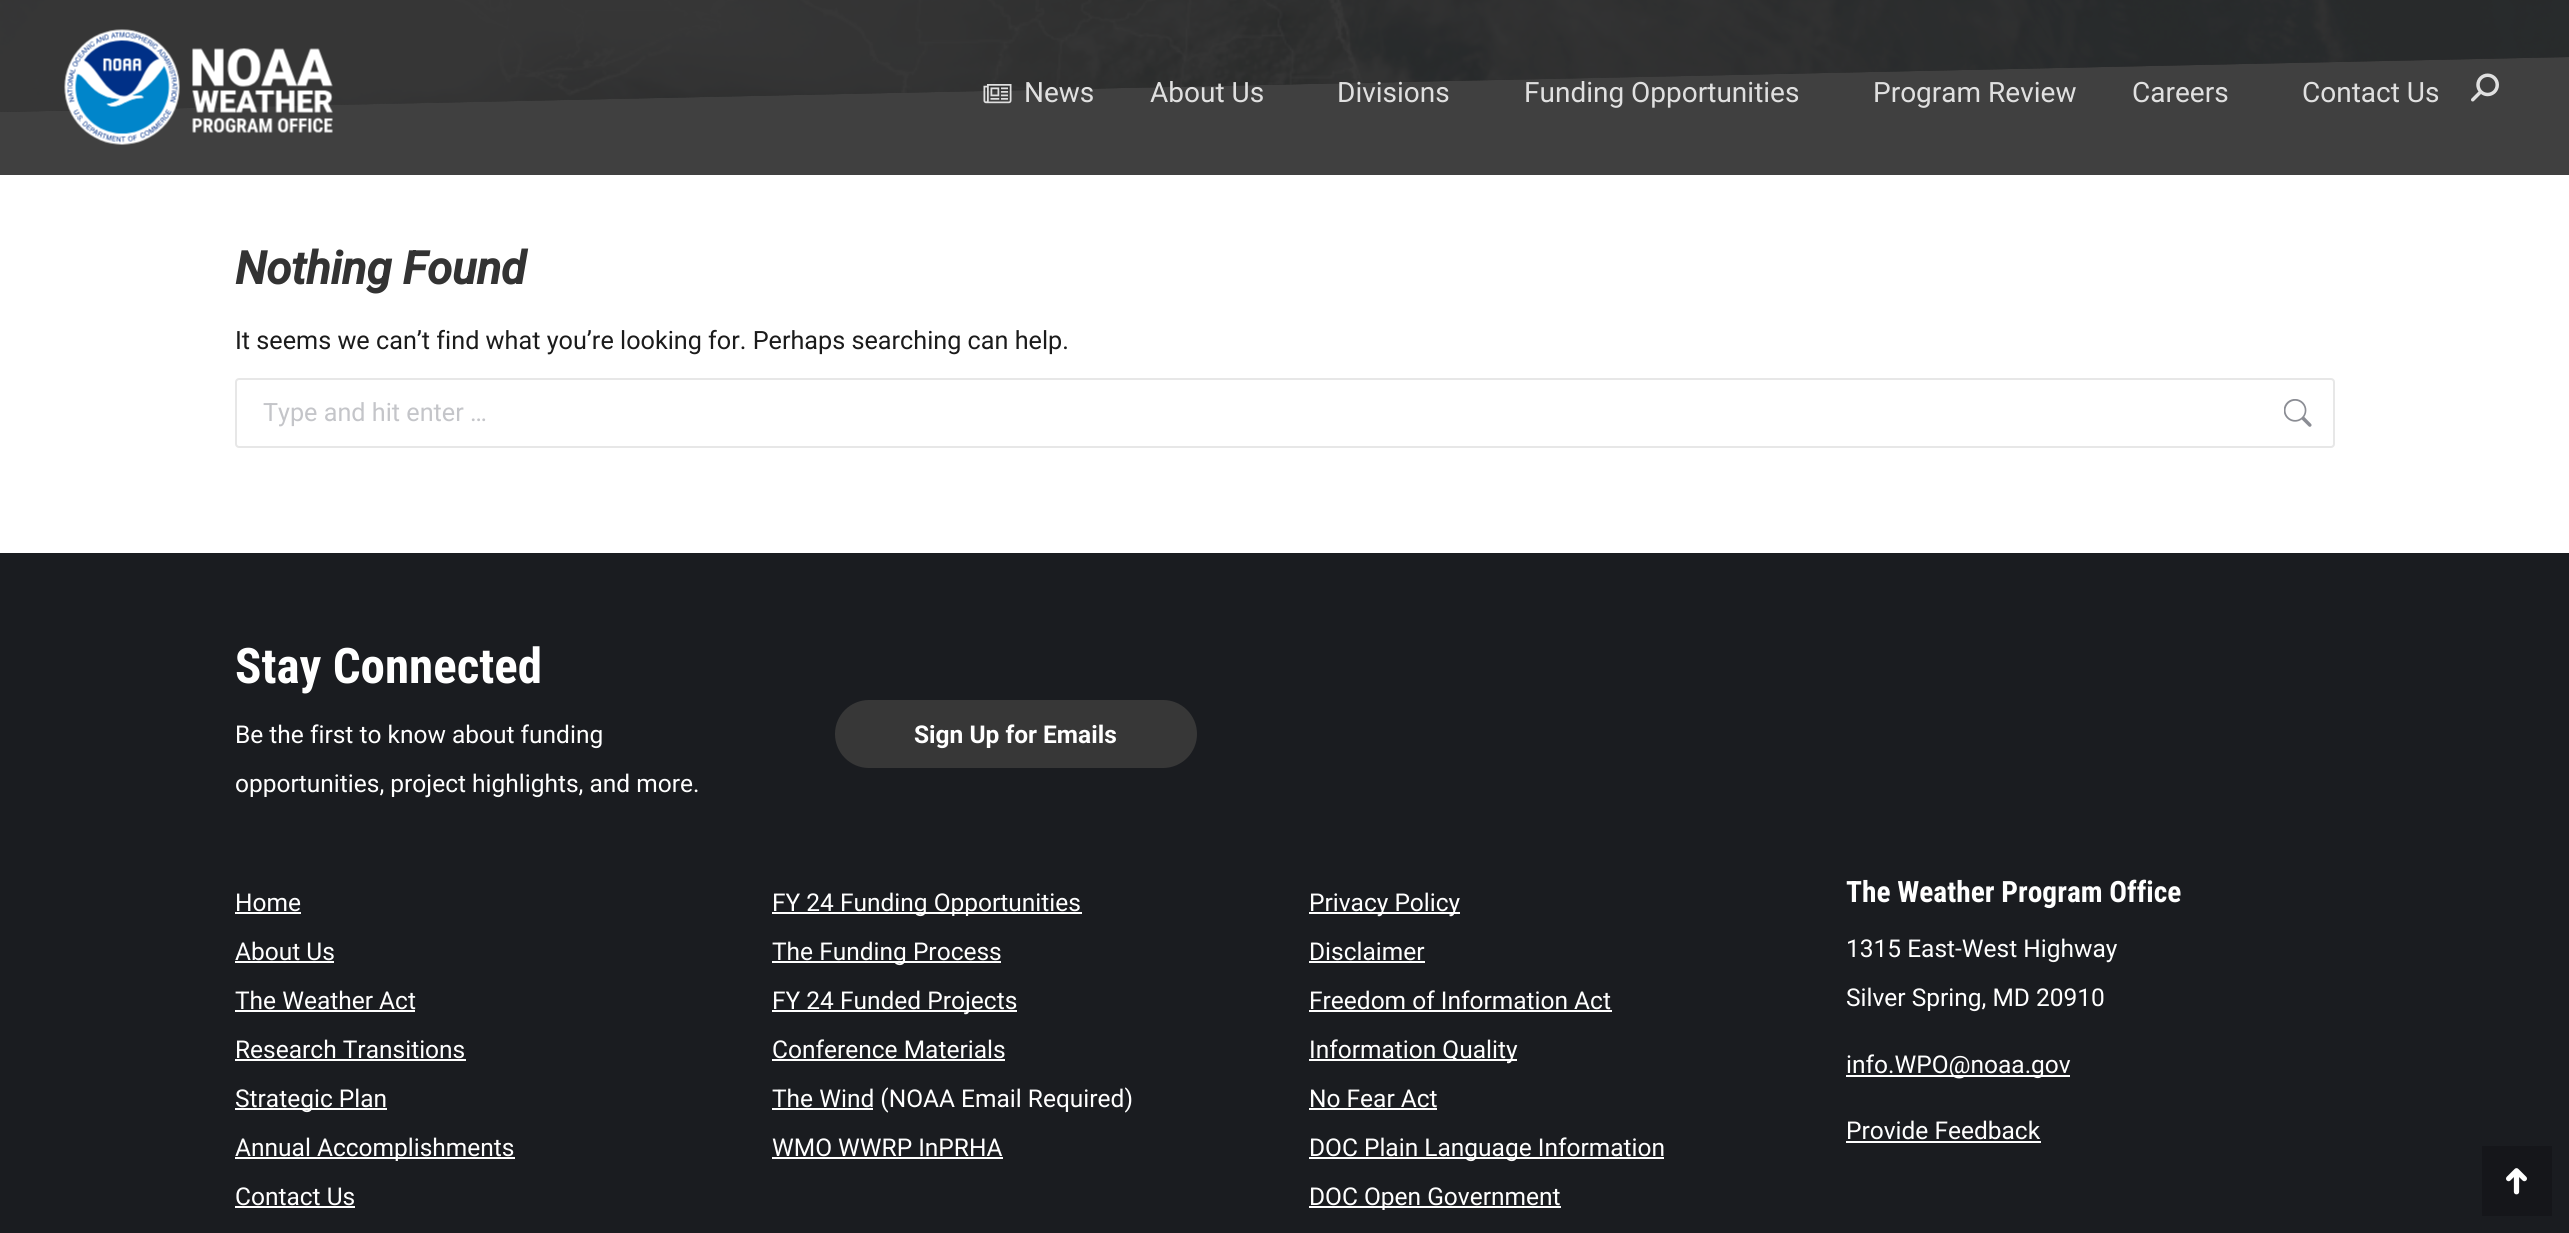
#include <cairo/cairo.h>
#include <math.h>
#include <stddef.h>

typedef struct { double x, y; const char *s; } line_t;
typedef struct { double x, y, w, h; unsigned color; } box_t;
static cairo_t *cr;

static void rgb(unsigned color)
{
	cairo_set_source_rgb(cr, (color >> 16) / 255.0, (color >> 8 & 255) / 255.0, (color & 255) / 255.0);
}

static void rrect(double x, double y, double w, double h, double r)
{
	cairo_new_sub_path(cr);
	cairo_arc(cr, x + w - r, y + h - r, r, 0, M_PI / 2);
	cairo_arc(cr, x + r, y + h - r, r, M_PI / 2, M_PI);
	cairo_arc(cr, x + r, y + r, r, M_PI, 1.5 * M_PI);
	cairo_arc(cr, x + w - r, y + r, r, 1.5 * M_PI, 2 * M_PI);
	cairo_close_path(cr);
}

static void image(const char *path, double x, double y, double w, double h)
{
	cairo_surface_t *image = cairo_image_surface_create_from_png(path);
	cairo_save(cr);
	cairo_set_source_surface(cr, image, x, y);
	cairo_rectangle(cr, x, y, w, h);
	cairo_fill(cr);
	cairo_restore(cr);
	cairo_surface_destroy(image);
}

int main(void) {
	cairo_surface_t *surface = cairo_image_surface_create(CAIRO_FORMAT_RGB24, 2569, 1233);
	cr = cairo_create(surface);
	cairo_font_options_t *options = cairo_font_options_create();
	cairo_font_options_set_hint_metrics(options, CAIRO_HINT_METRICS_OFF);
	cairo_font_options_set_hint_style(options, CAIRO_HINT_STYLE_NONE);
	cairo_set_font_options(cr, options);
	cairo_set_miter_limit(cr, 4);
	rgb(0xffffff);
	cairo_paint(cr);
	rgb(0x404040);
	cairo_rectangle(cr, 0, 57, 2569, 118);
	cairo_fill(cr);
	rgb(0x2a2a2a);
	cairo_new_path(cr);
	cairo_move_to(cr, 0, -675);
	cairo_line_to(cr, 0, 112);
	cairo_line_to(cr, 2569, 57);
	cairo_line_to(cr, 2569, -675);
	cairo_close_path(cr);
	cairo_fill(cr);
	image("img/4.png", 0, 0, 2569, 112);
	cairo_set_source_rgba(cr, 0.169, 0.169, 0.169, 0.4);
	cairo_new_path(cr);
	cairo_move_to(cr, 0, -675);
	cairo_line_to(cr, 0, 112);
	cairo_line_to(cr, 2569, 57);
	cairo_line_to(cr, 2569, -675);
	cairo_close_path(cr);
	cairo_fill(cr);
	image("img/1.png", 64, 29, 269, 116);
	image("img/2.png", 983, 84, 29, 20);
	image("img/3.png", 2471, 73, 28, 29);
	rrect(236, 379, 2098, 68, 3);
	rgb(0xe7e7e7);
	cairo_stroke(cr);
	image("img/5.png", 2284, 399, 28, 28);
	rgb(0x1a1c20);
	cairo_rectangle(cr, 0, 553, 2569, 680);
	cairo_fill(cr);
	rgb(0x373737);
	rrect(835, 700, 362, 68, 34);
	cairo_fill(cr);
	{
		static const box_t items[] = {
			{235, 912, 66, 2, 0xffffff},
			{235, 961, 99, 2, 0xffffff},
			{235, 1010, 180, 2, 0xffffff},
			{235, 1059, 231, 2, 0xffffff},
			{235, 1108, 152, 2, 0xffffff},
			{235, 1157, 280, 2, 0xffffff},
			{235, 1206, 120, 2, 0xffffff},
			{772, 912, 310, 2, 0xffffff},
			{772, 961, 229, 2, 0xffffff},
			{772, 1010, 245, 2, 0xffffff},
			{772, 1059, 233, 2, 0xffffff},
			{772, 1108, 101, 2, 0xffffff},
			{772, 1157, 231, 2, 0xffffff},
			{1309, 912, 151, 2, 0xffffff},
			{1309, 961, 116, 2, 0xffffff},
			{1309, 1010, 303, 2, 0xffffff},
			{1309, 1059, 208, 2, 0xffffff},
			{1309, 1108, 128, 2, 0xffffff},
			{1309, 1157, 355, 2, 0xffffff},
			{1309, 1206, 252, 2, 0xffffff},
			{1846, 1075, 224, 2, 0xffffff},
			{1846, 1141, 195, 2, 0xffffff},
			{2482, 1146, 70, 70, 0x15161a},
		};
		for (size_t i = 0; i < sizeof items / sizeof *items; i++) {
			rgb(items[i].color);
			cairo_rectangle(cr, items[i].x, items[i].y, items[i].w, items[i].h);
			cairo_fill(cr);
		}
	}
	image("img/6.png", 2506, 1168, 21, 27);
	cairo_select_font_face(cr, "Roboto", CAIRO_FONT_SLANT_NORMAL, CAIRO_FONT_WEIGHT_NORMAL);
	cairo_set_font_size(cr, 28);
	rgb(0xe0e0e0);
	{
		static const line_t items[] = {
			{1024, 102, "News"},
			{1150, 102, "About Us"},
			{1337, 102, "Divisions"},
			{1524, 102, "Funding Opportunities"},
			{1873, 102, "Program Review"},
			{2132, 102, "Careers"},
			{2302, 102, "Contact Us"},
		};
		for (size_t i = 0; i < sizeof items / sizeof *items; i++) {
			cairo_move_to(cr, items[i].x, items[i].y);
			cairo_show_text(cr, items[i].s);
		}
	}
	cairo_select_font_face(cr, "Roboto", CAIRO_FONT_SLANT_ITALIC, CAIRO_FONT_WEIGHT_BOLD);
	cairo_set_font_size(cr, 45.5);
	rgb(0x333333);
	cairo_move_to(cr, 235, 284);
	cairo_show_text(cr, "Nothing Found");
	cairo_select_font_face(cr, "Roboto", CAIRO_FONT_SLANT_NORMAL, CAIRO_FONT_WEIGHT_NORMAL);
	cairo_set_font_size(cr, 25.2);
	rgb(0x1b1b1b);
	cairo_move_to(cr, 235, 349);
	cairo_show_text(cr, "It seems we can’t find what you’re looking for. Perhaps searching can help.");
	rgb(0xc4c5c9);
	cairo_move_to(cr, 263, 421);
	cairo_show_text(cr, "Type and hit enter …");
	cairo_select_font_face(cr, "Roboto Condensed", CAIRO_FONT_SLANT_NORMAL, CAIRO_FONT_WEIGHT_BOLD);
	cairo_set_font_size(cr, 49);
	rgb(0xffffff);
	cairo_move_to(cr, 235, 683);
	cairo_show_text(cr, "Stay Connected");
	cairo_select_font_face(cr, "Roboto", CAIRO_FONT_SLANT_NORMAL, CAIRO_FONT_WEIGHT_NORMAL);
	cairo_set_font_size(cr, 24.5);
	cairo_move_to(cr, 235, 743);
	cairo_show_text(cr, "Be the first to know about funding");
	cairo_move_to(cr, 235, 792);
	cairo_show_text(cr, "opportunities, project highlights, and more.");
	cairo_select_font_face(cr, "Roboto", CAIRO_FONT_SLANT_NORMAL, CAIRO_FONT_WEIGHT_BOLD);
	cairo_move_to(cr, 914, 743);
	cairo_show_text(cr, "Sign Up for Emails");
	cairo_select_font_face(cr, "Roboto", CAIRO_FONT_SLANT_NORMAL, CAIRO_FONT_WEIGHT_NORMAL);
	{
		static const line_t items[] = {
			{235, 911, "Home"},
			{235, 960, "About Us"},
			{235, 1009, "The Weather Act"},
			{235, 1058, "Research Transitions"},
			{235, 1107, "Strategic Plan"},
			{235, 1156, "Annual Accomplishments"},
			{235, 1205, "Contact Us"},
			{772, 911, "FY 24 Funding Opportunities"},
			{772, 960, "The Funding Process"},
			{772, 1009, "FY 24 Funded Projects"},
			{772, 1058, "Conference Materials"},
			{772, 1107, "The Wind (NOAA Email Required)"},
			{772, 1156, "WMO WWRP InPRHA"},
			{1309, 911, "Privacy Policy"},
			{1309, 960, "Disclaimer"},
			{1309, 1009, "Freedom of Information Act"},
			{1309, 1058, "Information Quality"},
			{1309, 1107, "No Fear Act"},
			{1309, 1156, "DOC Plain Language Information"},
			{1309, 1205, "DOC Open Government"},
		};
		for (size_t i = 0; i < sizeof items / sizeof *items; i++) {
			cairo_move_to(cr, items[i].x, items[i].y);
			cairo_show_text(cr, items[i].s);
		}
	}
	cairo_select_font_face(cr, "Roboto Condensed", CAIRO_FONT_SLANT_NORMAL, CAIRO_FONT_WEIGHT_BOLD);
	cairo_set_font_size(cr, 29.4);
	cairo_move_to(cr, 1846, 902);
	cairo_show_text(cr, "The Weather Program Office");
	cairo_select_font_face(cr, "Roboto", CAIRO_FONT_SLANT_NORMAL, CAIRO_FONT_WEIGHT_NORMAL);
	cairo_set_font_size(cr, 24.5);
	{
		static const line_t items[] = {
			{1846, 957, "1315 East-West Highway"},
			{1846, 1006, "Silver Spring, MD 20910"},
			{1846, 1073, "info.WPO@noaa.gov"},
			{1846, 1139, "Provide Feedback"},
		};
		for (size_t i = 0; i < sizeof items / sizeof *items; i++) {
			cairo_move_to(cr, items[i].x, items[i].y);
			cairo_show_text(cr, items[i].s);
		}
	}
	cairo_surface_write_to_png(surface, "page.png");
	cairo_font_options_destroy(options);
	cairo_destroy(cr);
	cairo_surface_destroy(surface);
	return 0;
}
